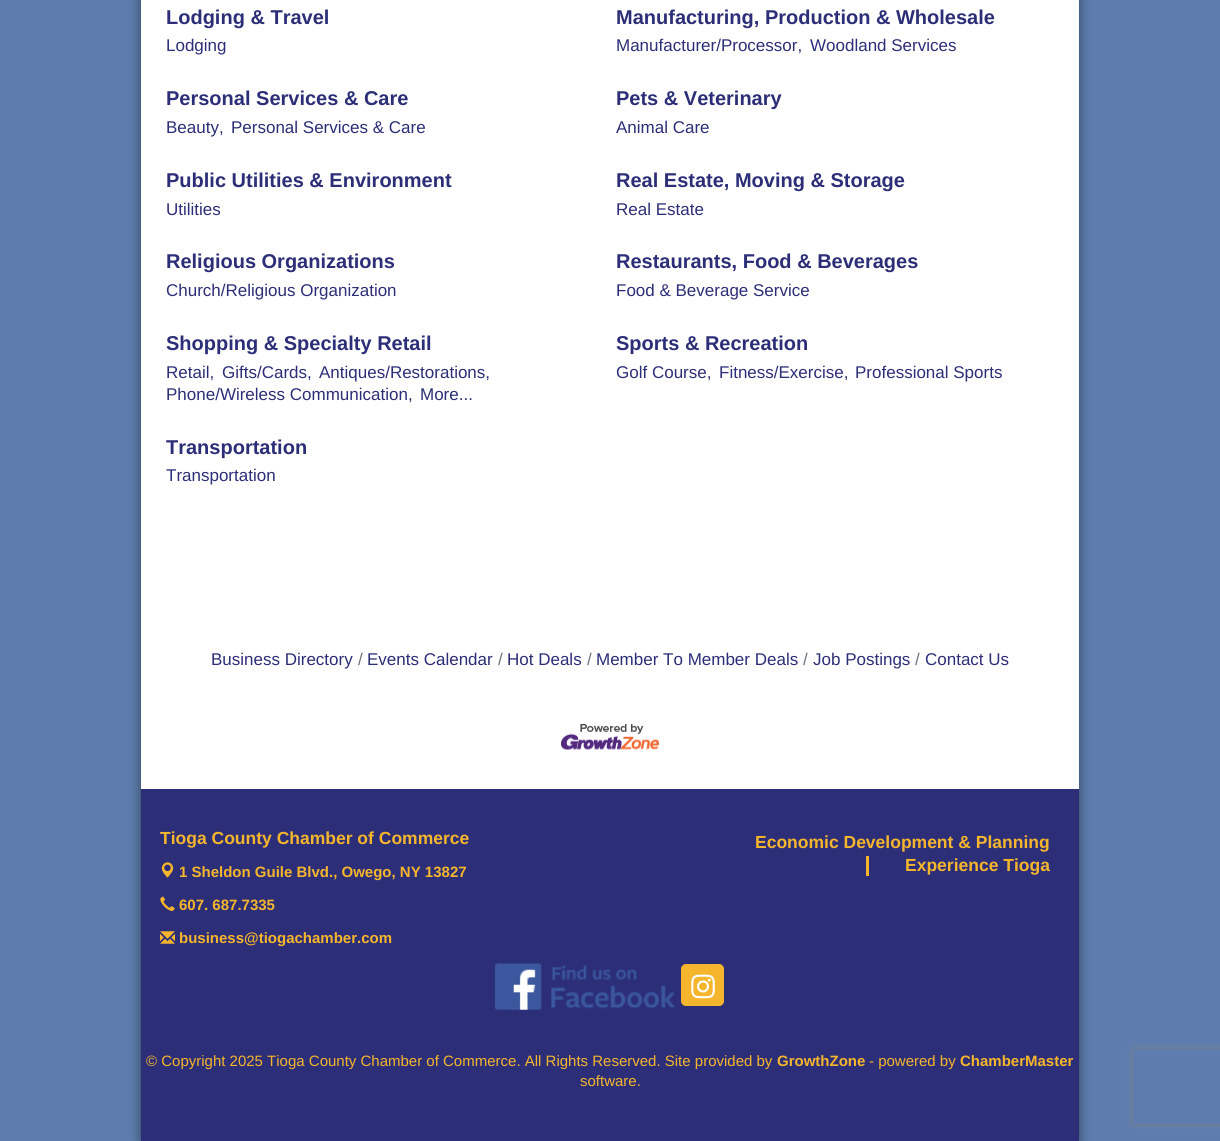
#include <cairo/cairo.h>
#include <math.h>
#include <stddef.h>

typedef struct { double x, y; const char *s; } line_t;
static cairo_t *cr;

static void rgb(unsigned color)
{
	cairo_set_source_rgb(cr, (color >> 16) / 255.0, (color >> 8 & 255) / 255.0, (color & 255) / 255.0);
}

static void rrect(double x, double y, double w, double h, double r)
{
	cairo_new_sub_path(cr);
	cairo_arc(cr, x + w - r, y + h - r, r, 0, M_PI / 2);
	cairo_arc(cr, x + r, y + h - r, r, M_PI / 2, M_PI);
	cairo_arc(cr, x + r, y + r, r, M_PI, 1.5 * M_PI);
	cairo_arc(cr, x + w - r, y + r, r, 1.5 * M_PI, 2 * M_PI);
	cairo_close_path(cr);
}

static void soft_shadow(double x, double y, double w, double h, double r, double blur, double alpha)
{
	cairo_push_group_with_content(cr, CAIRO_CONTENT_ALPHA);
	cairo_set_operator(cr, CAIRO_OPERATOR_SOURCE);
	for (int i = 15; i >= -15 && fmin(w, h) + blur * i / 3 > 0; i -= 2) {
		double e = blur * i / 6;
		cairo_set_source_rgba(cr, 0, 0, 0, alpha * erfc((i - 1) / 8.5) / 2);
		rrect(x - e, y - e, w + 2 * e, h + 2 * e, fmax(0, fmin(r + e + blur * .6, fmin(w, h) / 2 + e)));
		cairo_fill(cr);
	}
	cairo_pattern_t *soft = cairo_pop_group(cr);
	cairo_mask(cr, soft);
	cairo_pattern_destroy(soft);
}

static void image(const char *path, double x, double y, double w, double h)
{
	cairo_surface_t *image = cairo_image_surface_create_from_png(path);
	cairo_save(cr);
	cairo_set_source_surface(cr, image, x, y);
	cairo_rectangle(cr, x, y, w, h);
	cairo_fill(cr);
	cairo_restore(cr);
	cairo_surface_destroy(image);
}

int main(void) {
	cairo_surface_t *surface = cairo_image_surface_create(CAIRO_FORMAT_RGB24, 1220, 1141);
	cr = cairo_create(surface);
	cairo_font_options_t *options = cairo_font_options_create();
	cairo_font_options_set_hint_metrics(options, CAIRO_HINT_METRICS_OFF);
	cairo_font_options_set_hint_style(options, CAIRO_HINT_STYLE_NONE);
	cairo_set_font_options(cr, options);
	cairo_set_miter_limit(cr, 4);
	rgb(0x5e7dae);
	cairo_paint(cr);
	rgb(0x000000);
	soft_shadow(141, -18, 938, 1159, 0, 6, 0.5);
	rgb(0xffffff);
	cairo_rectangle(cr, 141, 0, 938, 789);
	cairo_fill(cr);
	image("img/1.png", 561, 724, 98, 26);
	rgb(0x2c2e78);
	cairo_rectangle(cr, 141, 789, 938, 352);
	cairo_fill(cr);
	image("img/2.png", 161, 862, 13, 16);
	image("img/3.png", 160, 896, 15, 16);
	image("img/4.png", 160, 931, 15, 13);
	rgb(0xf5b52d);
	cairo_rectangle(cr, 866, 856, 3, 20);
	cairo_fill(cr);
	image("img/5.png", 495, 963, 180, 47);
	rrect(681.5, 964.5, 42, 41, 4.5);
	cairo_fill_preserve(cr);
	cairo_set_line_width(cr, 1);
	cairo_stroke(cr);
	image("img/6.png", 691, 974, 24, 25);
	cairo_save(cr);
	cairo_set_fill_rule(cr, CAIRO_FILL_RULE_EVEN_ODD);
	cairo_new_path(cr);
	cairo_move_to(cr, 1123, 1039);
	cairo_line_to(cr, 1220, 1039);
	cairo_line_to(cr, 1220, 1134);
	cairo_line_to(cr, 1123, 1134);
	cairo_close_path(cr);
	cairo_move_to(cr, 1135.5, 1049);
	cairo_line_to(cr, 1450.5, 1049);
	cairo_curve_to(cr, 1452, 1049, 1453, 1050, 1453, 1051.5);
	cairo_line_to(cr, 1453, 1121.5);
	cairo_curve_to(cr, 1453, 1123, 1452, 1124, 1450.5, 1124);
	cairo_line_to(cr, 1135.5, 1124);
	cairo_curve_to(cr, 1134, 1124, 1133, 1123, 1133, 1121.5);
	cairo_line_to(cr, 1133, 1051.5);
	cairo_curve_to(cr, 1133, 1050, 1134, 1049, 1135.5, 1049);
	cairo_close_path(cr);
	cairo_clip(cr);
	rgb(0x808080);
	soft_shadow(1133, 1049, 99, 75, 2.5, 3, 1);
	cairo_restore(cr);
	cairo_select_font_face(cr, "Liberation Sans", CAIRO_FONT_SLANT_NORMAL, CAIRO_FONT_WEIGHT_BOLD);
	cairo_set_font_size(cr, 20);
	rgb(0x2c2e77);
	cairo_move_to(cr, 166, 24);
	cairo_show_text(cr, "Lodging & Travel");
	cairo_select_font_face(cr, "Liberation Sans", CAIRO_FONT_SLANT_NORMAL, CAIRO_FONT_WEIGHT_NORMAL);
	cairo_set_font_size(cr, 17);
	cairo_move_to(cr, 166, 51);
	cairo_show_text(cr, "Lodging");
	cairo_select_font_face(cr, "Liberation Sans", CAIRO_FONT_SLANT_NORMAL, CAIRO_FONT_WEIGHT_BOLD);
	cairo_set_font_size(cr, 20);
	cairo_move_to(cr, 616, 24);
	cairo_show_text(cr, "Manufacturing, Production & Wholesale");
	cairo_select_font_face(cr, "Liberation Sans", CAIRO_FONT_SLANT_NORMAL, CAIRO_FONT_WEIGHT_NORMAL);
	cairo_set_font_size(cr, 17);
	cairo_move_to(cr, 616, 51);
	cairo_show_text(cr, "Manufacturer/Processor,");
	cairo_move_to(cr, 810, 51);
	cairo_show_text(cr, "Woodland Services");
	cairo_select_font_face(cr, "Liberation Sans", CAIRO_FONT_SLANT_NORMAL, CAIRO_FONT_WEIGHT_BOLD);
	cairo_set_font_size(cr, 20);
	cairo_move_to(cr, 166, 105);
	cairo_show_text(cr, "Personal Services & Care");
	cairo_select_font_face(cr, "Liberation Sans", CAIRO_FONT_SLANT_NORMAL, CAIRO_FONT_WEIGHT_NORMAL);
	cairo_set_font_size(cr, 17);
	cairo_move_to(cr, 166, 133);
	cairo_show_text(cr, "Beauty,");
	cairo_move_to(cr, 231, 133);
	cairo_show_text(cr, "Personal Services & Care");
	cairo_select_font_face(cr, "Liberation Sans", CAIRO_FONT_SLANT_NORMAL, CAIRO_FONT_WEIGHT_BOLD);
	cairo_set_font_size(cr, 20);
	cairo_move_to(cr, 616, 105);
	cairo_show_text(cr, "Pets & Veterinary");
	cairo_select_font_face(cr, "Liberation Sans", CAIRO_FONT_SLANT_NORMAL, CAIRO_FONT_WEIGHT_NORMAL);
	cairo_set_font_size(cr, 17);
	cairo_move_to(cr, 616, 133);
	cairo_show_text(cr, "Animal Care");
	cairo_select_font_face(cr, "Liberation Sans", CAIRO_FONT_SLANT_NORMAL, CAIRO_FONT_WEIGHT_BOLD);
	cairo_set_font_size(cr, 20);
	cairo_move_to(cr, 166, 187);
	cairo_show_text(cr, "Public Utilities & Environment");
	cairo_select_font_face(cr, "Liberation Sans", CAIRO_FONT_SLANT_NORMAL, CAIRO_FONT_WEIGHT_NORMAL);
	cairo_set_font_size(cr, 17);
	cairo_move_to(cr, 166, 215);
	cairo_show_text(cr, "Utilities");
	cairo_select_font_face(cr, "Liberation Sans", CAIRO_FONT_SLANT_NORMAL, CAIRO_FONT_WEIGHT_BOLD);
	cairo_set_font_size(cr, 20);
	cairo_move_to(cr, 616, 187);
	cairo_show_text(cr, "Real Estate, Moving & Storage");
	cairo_select_font_face(cr, "Liberation Sans", CAIRO_FONT_SLANT_NORMAL, CAIRO_FONT_WEIGHT_NORMAL);
	cairo_set_font_size(cr, 17);
	cairo_move_to(cr, 616, 215);
	cairo_show_text(cr, "Real Estate");
	cairo_select_font_face(cr, "Liberation Sans", CAIRO_FONT_SLANT_NORMAL, CAIRO_FONT_WEIGHT_BOLD);
	cairo_set_font_size(cr, 20);
	cairo_move_to(cr, 166, 268);
	cairo_show_text(cr, "Religious Organizations");
	cairo_select_font_face(cr, "Liberation Sans", CAIRO_FONT_SLANT_NORMAL, CAIRO_FONT_WEIGHT_NORMAL);
	cairo_set_font_size(cr, 17);
	cairo_move_to(cr, 166, 296);
	cairo_show_text(cr, "Church/Religious Organization");
	cairo_select_font_face(cr, "Liberation Sans", CAIRO_FONT_SLANT_NORMAL, CAIRO_FONT_WEIGHT_BOLD);
	cairo_set_font_size(cr, 20);
	cairo_move_to(cr, 616, 268);
	cairo_show_text(cr, "Restaurants, Food & Beverages");
	cairo_select_font_face(cr, "Liberation Sans", CAIRO_FONT_SLANT_NORMAL, CAIRO_FONT_WEIGHT_NORMAL);
	cairo_set_font_size(cr, 17);
	cairo_move_to(cr, 616, 296);
	cairo_show_text(cr, "Food & Beverage Service");
	cairo_select_font_face(cr, "Liberation Sans", CAIRO_FONT_SLANT_NORMAL, CAIRO_FONT_WEIGHT_BOLD);
	cairo_set_font_size(cr, 20);
	cairo_move_to(cr, 166, 350);
	cairo_show_text(cr, "Shopping & Specialty Retail");
	cairo_select_font_face(cr, "Liberation Sans", CAIRO_FONT_SLANT_NORMAL, CAIRO_FONT_WEIGHT_NORMAL);
	cairo_set_font_size(cr, 17);
	{
		static const line_t items[] = {
			{166, 378, "Retail,"},
			{222, 378, "Gifts/Cards,"},
			{319, 378, "Antiques/Restorations,"},
			{166, 400, "Phone/Wireless Communication,"},
			{420, 400, "More..."},
		};
		for (size_t i = 0; i < sizeof items / sizeof *items; i++) {
			cairo_move_to(cr, items[i].x, items[i].y);
			cairo_show_text(cr, items[i].s);
		}
	}
	cairo_select_font_face(cr, "Liberation Sans", CAIRO_FONT_SLANT_NORMAL, CAIRO_FONT_WEIGHT_BOLD);
	cairo_set_font_size(cr, 20);
	cairo_move_to(cr, 616, 350);
	cairo_show_text(cr, "Sports & Recreation");
	cairo_select_font_face(cr, "Liberation Sans", CAIRO_FONT_SLANT_NORMAL, CAIRO_FONT_WEIGHT_NORMAL);
	cairo_set_font_size(cr, 17);
	{
		static const line_t items[] = {
			{616, 378, "Golf Course,"},
			{719, 378, "Fitness/Exercise,"},
			{855, 378, "Professional Sports"},
		};
		for (size_t i = 0; i < sizeof items / sizeof *items; i++) {
			cairo_move_to(cr, items[i].x, items[i].y);
			cairo_show_text(cr, items[i].s);
		}
	}
	cairo_select_font_face(cr, "Liberation Sans", CAIRO_FONT_SLANT_NORMAL, CAIRO_FONT_WEIGHT_BOLD);
	cairo_set_font_size(cr, 20);
	cairo_move_to(cr, 166, 454);
	cairo_show_text(cr, "Transportation");
	cairo_select_font_face(cr, "Liberation Sans", CAIRO_FONT_SLANT_NORMAL, CAIRO_FONT_WEIGHT_NORMAL);
	cairo_set_font_size(cr, 17);
	cairo_move_to(cr, 166, 481);
	cairo_show_text(cr, "Transportation");
	cairo_move_to(cr, 211, 665);
	cairo_show_text(cr, "Business Directory");
	rgb(0x6c757d);
	cairo_move_to(cr, 358, 665);
	cairo_show_text(cr, "/");
	rgb(0x2c2e77);
	cairo_move_to(cr, 367, 665);
	cairo_show_text(cr, "Events Calendar");
	rgb(0x6c757d);
	cairo_move_to(cr, 498, 665);
	cairo_show_text(cr, "/");
	rgb(0x2c2e77);
	cairo_move_to(cr, 507, 665);
	cairo_show_text(cr, "Hot Deals");
	rgb(0x6c757d);
	cairo_move_to(cr, 587, 665);
	cairo_show_text(cr, "/");
	rgb(0x2c2e77);
	cairo_move_to(cr, 596, 665);
	cairo_show_text(cr, "Member To Member Deals");
	rgb(0x6c757d);
	cairo_move_to(cr, 803, 665);
	cairo_show_text(cr, "/");
	rgb(0x2c2e77);
	cairo_move_to(cr, 813, 665);
	cairo_show_text(cr, "Job Postings");
	rgb(0x6c757d);
	cairo_move_to(cr, 915, 665);
	cairo_show_text(cr, "/");
	rgb(0x2c2e77);
	cairo_move_to(cr, 925, 665);
	cairo_show_text(cr, "Contact Us");
	cairo_select_font_face(cr, "Liberation Sans", CAIRO_FONT_SLANT_NORMAL, CAIRO_FONT_WEIGHT_BOLD);
	cairo_set_font_size(cr, 17.5);
	rgb(0xf5b52d);
	cairo_move_to(cr, 160, 844);
	cairo_show_text(cr, "Tioga County Chamber of Commerce");
	cairo_set_font_size(cr, 15);
	{
		static const line_t items[] = {
			{179, 877, "1 Sheldon Guile Blvd., Owego, NY 13827"},
			{179, 910, "607. 687.7335"},
			{179, 943, "business@tiogachamber.com"},
		};
		for (size_t i = 0; i < sizeof items / sizeof *items; i++) {
			cairo_move_to(cr, items[i].x, items[i].y);
			cairo_show_text(cr, items[i].s);
		}
	}
	cairo_set_font_size(cr, 17.5);
	cairo_move_to(cr, 755, 848);
	cairo_show_text(cr, "Economic Development & Planning");
	cairo_move_to(cr, 905, 871);
	cairo_show_text(cr, "Experience Tioga");
	cairo_select_font_face(cr, "Liberation Sans", CAIRO_FONT_SLANT_NORMAL, CAIRO_FONT_WEIGHT_NORMAL);
	cairo_set_font_size(cr, 15);
	cairo_move_to(cr, 146, 1066);
	cairo_show_text(cr, "© Copyright 2025 Tioga County Chamber of Commerce. All Rights Reserved. Site provided by");
	cairo_select_font_face(cr, "Liberation Sans", CAIRO_FONT_SLANT_NORMAL, CAIRO_FONT_WEIGHT_BOLD);
	cairo_move_to(cr, 777, 1066);
	cairo_show_text(cr, "GrowthZone");
	cairo_select_font_face(cr, "Liberation Sans", CAIRO_FONT_SLANT_NORMAL, CAIRO_FONT_WEIGHT_NORMAL);
	cairo_move_to(cr, 869, 1066);
	cairo_show_text(cr, "- powered by");
	cairo_select_font_face(cr, "Liberation Sans", CAIRO_FONT_SLANT_NORMAL, CAIRO_FONT_WEIGHT_BOLD);
	cairo_move_to(cr, 960, 1066);
	cairo_show_text(cr, "ChamberMaster");
	cairo_select_font_face(cr, "Liberation Sans", CAIRO_FONT_SLANT_NORMAL, CAIRO_FONT_WEIGHT_NORMAL);
	cairo_move_to(cr, 580, 1086);
	cairo_show_text(cr, "software.");
	cairo_surface_write_to_png(surface, "page.png");
	cairo_font_options_destroy(options);
	cairo_destroy(cr);
	cairo_surface_destroy(surface);
	return 0;
}
